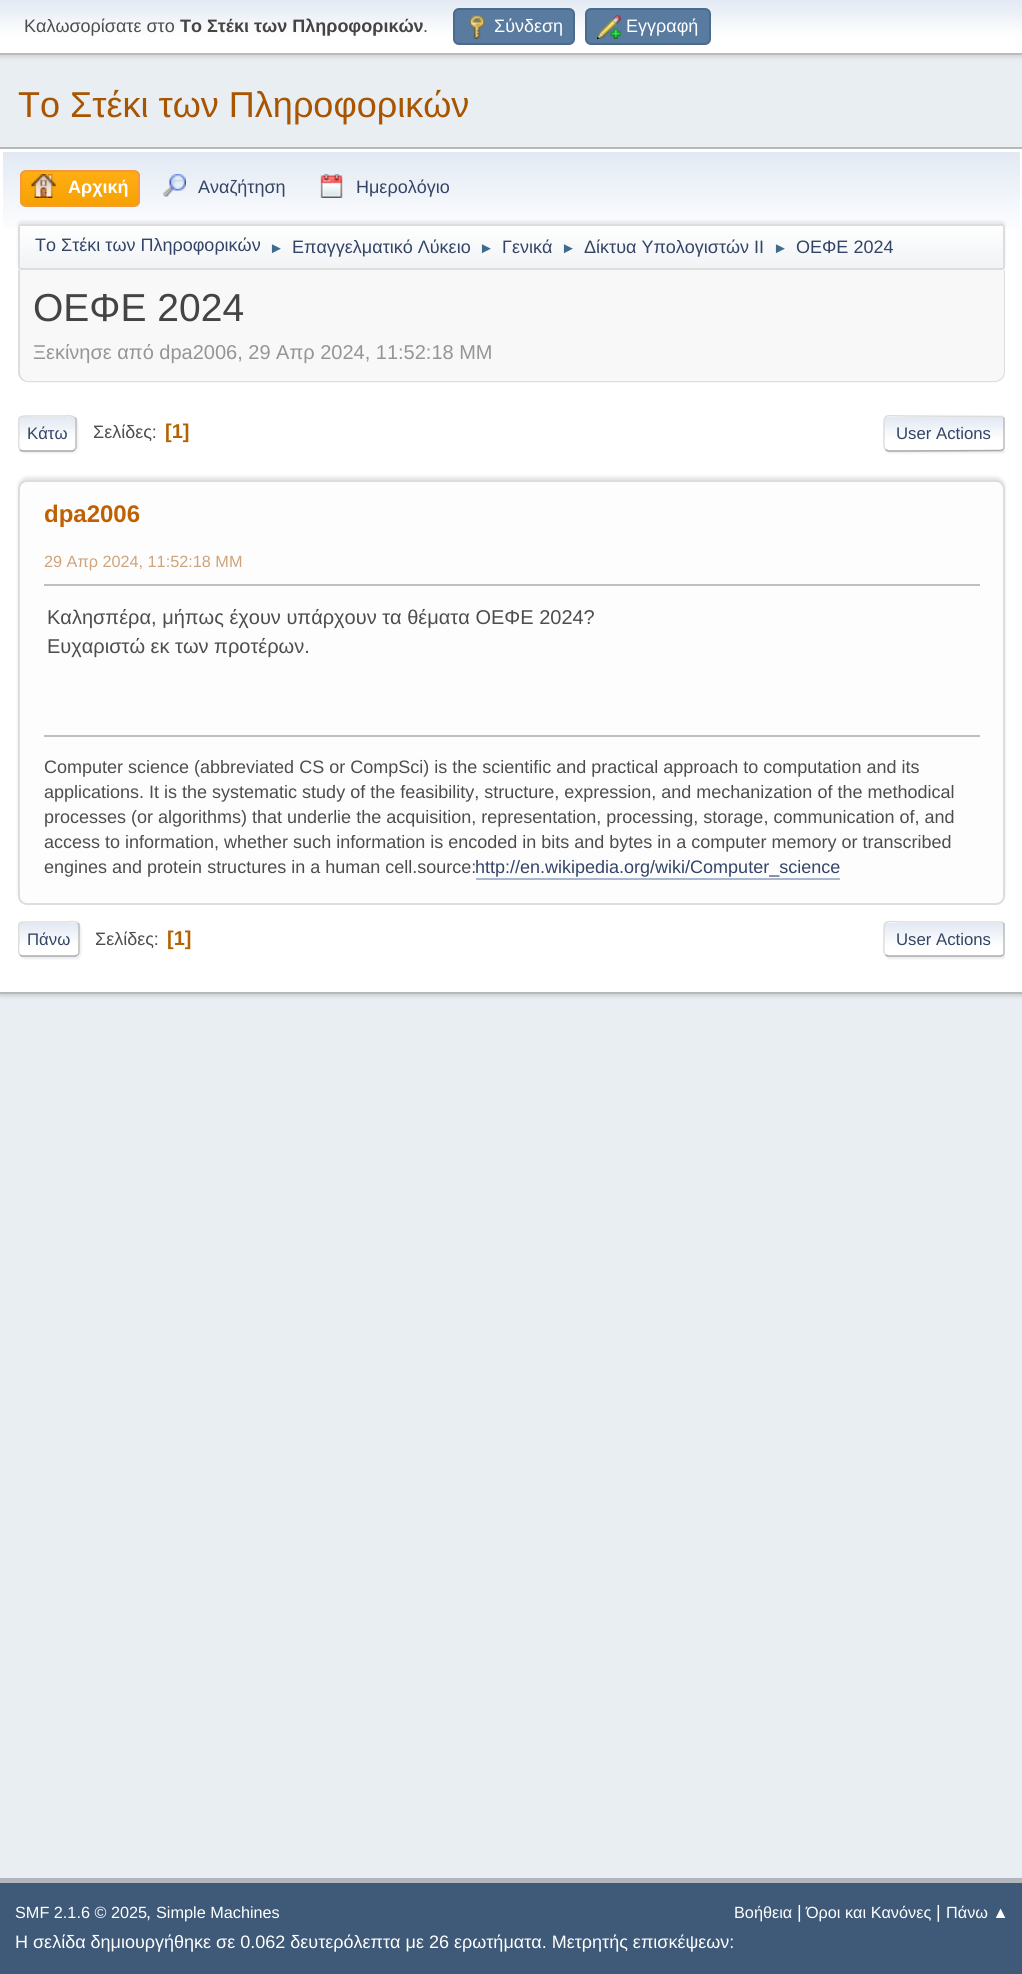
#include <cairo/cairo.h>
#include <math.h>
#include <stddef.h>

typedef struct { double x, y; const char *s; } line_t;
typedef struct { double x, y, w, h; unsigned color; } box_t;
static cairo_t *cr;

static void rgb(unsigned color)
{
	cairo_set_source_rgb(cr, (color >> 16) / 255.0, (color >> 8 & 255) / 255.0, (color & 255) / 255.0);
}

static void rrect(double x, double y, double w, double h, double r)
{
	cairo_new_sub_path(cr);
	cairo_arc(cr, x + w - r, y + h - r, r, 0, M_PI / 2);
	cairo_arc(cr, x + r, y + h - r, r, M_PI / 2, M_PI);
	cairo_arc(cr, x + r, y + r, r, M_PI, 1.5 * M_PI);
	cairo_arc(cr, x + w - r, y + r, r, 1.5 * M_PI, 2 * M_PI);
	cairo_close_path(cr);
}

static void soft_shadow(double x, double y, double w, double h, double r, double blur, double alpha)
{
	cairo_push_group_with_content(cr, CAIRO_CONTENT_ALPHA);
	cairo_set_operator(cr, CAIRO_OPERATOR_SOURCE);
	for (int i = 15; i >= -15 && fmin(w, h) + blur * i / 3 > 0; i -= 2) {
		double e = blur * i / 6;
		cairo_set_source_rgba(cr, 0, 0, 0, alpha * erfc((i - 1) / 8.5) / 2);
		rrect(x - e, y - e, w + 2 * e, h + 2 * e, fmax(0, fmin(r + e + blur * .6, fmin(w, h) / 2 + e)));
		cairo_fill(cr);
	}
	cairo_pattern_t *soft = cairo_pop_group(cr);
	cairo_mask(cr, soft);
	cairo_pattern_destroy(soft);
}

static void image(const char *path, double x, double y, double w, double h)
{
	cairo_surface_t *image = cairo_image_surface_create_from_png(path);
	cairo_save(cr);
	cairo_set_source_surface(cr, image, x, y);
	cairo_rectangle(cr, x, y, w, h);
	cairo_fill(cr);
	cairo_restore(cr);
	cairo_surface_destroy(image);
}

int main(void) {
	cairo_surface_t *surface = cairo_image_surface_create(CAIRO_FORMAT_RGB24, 1022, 1974);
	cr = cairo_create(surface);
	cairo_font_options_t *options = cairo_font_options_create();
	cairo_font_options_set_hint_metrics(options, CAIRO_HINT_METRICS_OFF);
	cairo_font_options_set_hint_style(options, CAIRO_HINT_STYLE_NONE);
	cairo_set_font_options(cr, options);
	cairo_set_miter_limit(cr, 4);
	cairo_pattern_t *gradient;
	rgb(0xe9eef2);
	cairo_paint(cr);
	rgb(0x000000);
	soft_shadow(0, 2, 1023, 54, 0, 3, 0.16);
	gradient = cairo_pattern_create_linear(512, 0, 512, 53);
	cairo_pattern_add_color_stop_rgba(gradient, 0, 0.886, 0.914, 0.953, 1);
	cairo_pattern_add_color_stop_rgba(gradient, 0.7, 1, 1, 1, 1);
	cairo_set_source(cr, gradient);
	cairo_pattern_destroy(gradient);
	cairo_rectangle(cr, 0, 0, 1022, 53);
	cairo_fill(cr);
	rgb(0xbbbbbb);
	cairo_rectangle(cr, 0, 53, 1022, 2);
	cairo_fill(cr);
	rgb(0x597b9f);
	rrect(454, 9, 120, 35, 5);
	cairo_fill_preserve(cr);
	rgb(0x4a6b8c);
	cairo_stroke(cr);
	image("img/1.png", 469, 15, 16, 24);
	rgb(0x597b9f);
	rrect(586, 9, 124, 35, 5);
	cairo_fill_preserve(cr);
	rgb(0x4a6b8c);
	cairo_stroke(cr);
	image("img/2.png", 597, 15, 24, 24);
	rgb(0x000000);
	soft_shadow(0, 150, 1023, 846, 0, 2, 0.14);
	{
		static const box_t items[] = {
			{0, 149, 1022, 843, 0xffffff},
			{0, 147, 1022, 2, 0xb8b8b8},
			{0, 992, 1022, 2, 0xb8b8b8},
		};
		for (size_t i = 0; i < sizeof items / sizeof *items; i++) {
			rgb(items[i].color);
			cairo_rectangle(cr, items[i].x, items[i].y, items[i].w, items[i].h);
			cairo_fill(cr);
		}
	}
	gradient = cairo_pattern_create_linear(512, 151, 512, 273);
	cairo_pattern_add_color_stop_rgba(gradient, 0, 0.886, 0.914, 0.953, 1);
	cairo_pattern_add_color_stop_rgba(gradient, 0.7, 1, 1, 1, 1);
	cairo_set_source(cr, gradient);
	cairo_pattern_destroy(gradient);
	cairo_rectangle(cr, 3, 152, 1017, 77);
	cairo_fill(cr);
	cairo_save(cr);
	rrect(20, 170, 120, 37, 6);
	cairo_clip(cr);
	gradient = cairo_pattern_create_linear(80, 171, 80, 206);
	cairo_pattern_add_color_stop_rgba(gradient, 0, 1, 0.682, 0.078, 1);
	cairo_pattern_add_color_stop_rgba(gradient, 1, 0.961, 0.631, 0, 1);
	cairo_set_source(cr, gradient);
	cairo_pattern_destroy(gradient);
	cairo_rectangle(cr, 20, 171, 120, 35);
	cairo_fill(cr);
	cairo_restore(cr);
	rrect(21, 171, 118, 35, 5);
	rgb(0xf49a3a);
	cairo_stroke(cr);
	image("img/3.png", 31, 174, 25, 24);
	image("img/4.png", 163, 174, 23, 23);
	image("img/5.png", 320, 174, 23, 24);
	rgb(0x000000);
	soft_shadow(18, 221, 987, 46, 3, 1.5, 0.08);
	cairo_save(cr);
	rrect(18, 224, 987, 46, 3);
	cairo_clip(cr);
	gradient = cairo_pattern_create_linear(512, 225, 512, 269);
	cairo_pattern_add_color_stop_rgba(gradient, 0, 1, 1, 1, 1);
	cairo_pattern_add_color_stop_rgba(gradient, 0.95, 0.945, 0.953, 0.961, 1);
	cairo_set_source(cr, gradient);
	cairo_pattern_destroy(gradient);
	cairo_rectangle(cr, 18, 225, 987, 44);
	cairo_fill(cr);
	cairo_restore(cr);
	rrect(19, 225, 985, 44, 2);
	rgb(0xdddddd);
	cairo_stroke(cr);
	rgb(0xf8f8f8);
	cairo_new_path(cr);
	cairo_move_to(cr, 18, 270);
	cairo_line_to(cr, 1005, 270);
	cairo_line_to(cr, 1005, 372);
	cairo_curve_to(cr, 1005, 378, 1000, 383, 994, 383);
	cairo_line_to(cr, 29, 383);
	cairo_curve_to(cr, 23, 383, 18, 378, 18, 372);
	cairo_close_path(cr);
	cairo_fill(cr);
	rgb(0xdddddd);
	cairo_set_fill_rule(cr, CAIRO_FILL_RULE_EVEN_ODD);
	cairo_new_path(cr);
	cairo_move_to(cr, 18, 270);
	cairo_line_to(cr, 1005, 270);
	cairo_line_to(cr, 1005, 372);
	cairo_curve_to(cr, 1005, 378, 1000, 382, 994, 382);
	cairo_line_to(cr, 28, 382);
	cairo_curve_to(cr, 23, 382, 18, 378, 18, 372);
	cairo_close_path(cr);
	cairo_move_to(cr, 20, 270);
	cairo_line_to(cr, 1004, 270);
	cairo_line_to(cr, 1004, 372);
	cairo_curve_to(cr, 1004, 377, 999, 381, 994, 381);
	cairo_line_to(cr, 28, 381);
	cairo_curve_to(cr, 24, 381, 20, 377, 20, 372);
	cairo_close_path(cr);
	cairo_fill(cr);
	rgb(0xdddddd);
	soft_shadow(20, 417, 58, 36, 5, 1, 0.57);
	rgb(0xffffff);
	rrect(18, 416, 59, 36, 5);
	cairo_fill(cr);
	cairo_save(cr);
	cairo_set_fill_rule(cr, CAIRO_FILL_RULE_WINDING);
	rrect(18, 416, 59, 36, 5);
	cairo_clip(cr);
	gradient = cairo_pattern_create_linear(47, 417, 47, 450);
	cairo_pattern_add_color_stop_rgba(gradient, 0, 0.886, 0.914, 0.953, 1);
	cairo_pattern_add_color_stop_rgba(gradient, 0.7, 1, 1, 1, 1);
	cairo_set_source(cr, gradient);
	cairo_pattern_destroy(gradient);
	cairo_rectangle(cr, 18, 417, 59, 33);
	cairo_fill(cr);
	gradient = cairo_pattern_create_linear(47, 450, 47, 483);
	cairo_pattern_add_color_stop_rgba(gradient, 0, 0.886, 0.914, 0.953, 1);
	cairo_pattern_add_color_stop_rgba(gradient, 0.7, 1, 1, 1, 1);
	cairo_set_source(cr, gradient);
	cairo_pattern_destroy(gradient);
	cairo_rectangle(cr, 18, 450, 59, 2);
	cairo_fill(cr);
	cairo_restore(cr);
	cairo_new_path(cr);
	cairo_move_to(cr, 74.5, 417.5);
	cairo_curve_to(cr, 75.5, 418, 76, 419, 76, 420);
	cairo_line_to(cr, 76, 447);
	cairo_curve_to(cr, 76, 448, 75.5, 449, 74.5, 449.5);
	rgb(0xbbbbbb);
	cairo_set_line_width(cr, 1.5);
	cairo_stroke(cr);
	cairo_new_path(cr);
	cairo_move_to(cr, 74.5, 449.5);
	cairo_curve_to(cr, 74, 450.5, 73, 451, 72, 451);
	cairo_line_to(cr, 22.5, 451);
	cairo_curve_to(cr, 21.5, 451, 20.5, 450.5, 20, 449.5);
	rgb(0xaaaaaa);
	cairo_stroke(cr);
	cairo_save(cr);
	cairo_set_fill_rule(cr, CAIRO_FILL_RULE_WINDING);
	cairo_rectangle(cr, 18, 405, 987, 57);
	cairo_clip(cr);
	cairo_new_path(cr);
	cairo_move_to(cr, 20, 449.5);
	cairo_curve_to(cr, 17.5, 447.5, 19, 436.5, 19, 433.5);
	cairo_curve_to(cr, 19, 416.5, 15, 416, 31, 416);
	cairo_line_to(cr, 64, 416);
	cairo_curve_to(cr, 65, 416, 72, 415, 74.5, 417.5);
	rgb(0xdddddd);
	cairo_stroke(cr);
	cairo_restore(cr);
	cairo_save(cr);
	cairo_set_fill_rule(cr, CAIRO_FILL_RULE_WINDING);
	cairo_rectangle(cr, 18, 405, 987, 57);
	cairo_clip(cr);
	rgb(0xdddddd);
	soft_shadow(885, 417, 122, 36, 5, 1, 0.57);
	cairo_restore(cr);
	rgb(0xffffff);
	rrect(884, 416, 121, 36, 5);
	cairo_fill(cr);
	cairo_save(cr);
	cairo_set_fill_rule(cr, CAIRO_FILL_RULE_WINDING);
	rrect(884, 416, 121, 36, 5);
	cairo_clip(cr);
	gradient = cairo_pattern_create_linear(944, 417, 944, 450);
	cairo_pattern_add_color_stop_rgba(gradient, 0, 0.886, 0.914, 0.953, 1);
	cairo_pattern_add_color_stop_rgba(gradient, 0.7, 1, 1, 1, 1);
	cairo_set_source(cr, gradient);
	cairo_pattern_destroy(gradient);
	cairo_rectangle(cr, 884, 417, 121, 33);
	cairo_fill(cr);
	gradient = cairo_pattern_create_linear(944, 450, 944, 483);
	cairo_pattern_add_color_stop_rgba(gradient, 0, 0.886, 0.914, 0.953, 1);
	cairo_pattern_add_color_stop_rgba(gradient, 0.7, 1, 1, 1, 1);
	cairo_set_source(cr, gradient);
	cairo_pattern_destroy(gradient);
	cairo_rectangle(cr, 884, 450, 121, 2);
	cairo_fill(cr);
	cairo_restore(cr);
	cairo_new_path(cr);
	cairo_move_to(cr, 1003, 417.5);
	cairo_curve_to(cr, 1004, 418, 1004, 419, 1004, 420);
	cairo_line_to(cr, 1004, 447);
	cairo_curve_to(cr, 1004, 448, 1004, 449, 1003, 449.5);
	rgb(0xbbbbbb);
	cairo_stroke(cr);
	cairo_new_path(cr);
	cairo_move_to(cr, 1003, 449.5);
	cairo_line_to(cr, 1001, 450.5);
	cairo_line_to(cr, 907, 451);
	cairo_line_to(cr, 888, 451);
	cairo_line_to(cr, 885.5, 449.5);
	rgb(0xaaaaaa);
	cairo_stroke(cr);
	cairo_new_path(cr);
	cairo_move_to(cr, 885.5, 449.5);
	cairo_curve_to(cr, 883, 447.5, 884, 436.5, 884, 433.5);
	cairo_curve_to(cr, 884, 411.5, 882, 416, 907, 416);
	cairo_line_to(cr, 1002, 416.5);
	cairo_line_to(cr, 1003, 417.5);
	rgb(0xdddddd);
	cairo_stroke(cr);
	rgb(0x000000);
	soft_shadow(18, 477, 987, 425, 9, 1.5, 0.1);
	rgb(0xfdfdfd);
	rrect(19, 481, 985, 423, 8);
	cairo_fill_preserve(cr);
	rgb(0xdddddd);
	cairo_set_line_width(cr, 2);
	cairo_stroke(cr);
	{
		static const box_t items[] = {
			{44, 584, 936, 2, 0xbfbfbf},
			{44, 735, 936, 2, 0xbfbfbf},
			{476, 878, 364, 2, 0xa8b6cf},
		};
		for (size_t i = 0; i < sizeof items / sizeof *items; i++) {
			rgb(items[i].color);
			cairo_rectangle(cr, items[i].x, items[i].y, items[i].w, items[i].h);
			cairo_fill(cr);
		}
	}
	rgb(0xdddddd);
	soft_shadow(20, 923, 61, 36, 5, 1, 0.57);
	rgb(0xffffff);
	rrect(18, 921, 62, 36, 5);
	cairo_fill(cr);
	cairo_save(cr);
	cairo_set_fill_rule(cr, CAIRO_FILL_RULE_WINDING);
	rrect(18, 921, 62, 36, 5);
	cairo_clip(cr);
	gradient = cairo_pattern_create_linear(49, 923, 49, 956);
	cairo_pattern_add_color_stop_rgba(gradient, 0, 0.886, 0.914, 0.953, 1);
	cairo_pattern_add_color_stop_rgba(gradient, 0.7, 1, 1, 1, 1);
	cairo_set_source(cr, gradient);
	cairo_pattern_destroy(gradient);
	cairo_rectangle(cr, 18, 923, 62, 33);
	cairo_fill(cr);
	gradient = cairo_pattern_create_linear(49, 956, 49, 989);
	cairo_pattern_add_color_stop_rgba(gradient, 0, 0.886, 0.914, 0.953, 1);
	cairo_pattern_add_color_stop_rgba(gradient, 0.7, 1, 1, 1, 1);
	cairo_set_source(cr, gradient);
	cairo_pattern_destroy(gradient);
	cairo_rectangle(cr, 18, 956, 62, 1);
	cairo_fill(cr);
	cairo_restore(cr);
	cairo_new_path(cr);
	cairo_move_to(cr, 77.5, 923);
	cairo_curve_to(cr, 78.5, 923.5, 79, 924.5, 79, 925.5);
	cairo_line_to(cr, 79, 952.5);
	cairo_curve_to(cr, 79, 953.5, 78.5, 954.5, 77.5, 955);
	rgb(0xbbbbbb);
	cairo_set_line_width(cr, 1.5);
	cairo_stroke(cr);
	cairo_new_path(cr);
	cairo_move_to(cr, 77.5, 955);
	cairo_line_to(cr, 75.5, 956);
	cairo_line_to(cr, 22, 956);
	cairo_line_to(cr, 20, 955);
	rgb(0xaaaaaa);
	cairo_stroke(cr);
	cairo_save(cr);
	cairo_set_fill_rule(cr, CAIRO_FILL_RULE_WINDING);
	cairo_rectangle(cr, 18, 911, 987, 57);
	cairo_clip(cr);
	cairo_new_path(cr);
	cairo_move_to(cr, 20, 955);
	cairo_curve_to(cr, 17.5, 953, 19, 942, 19, 939);
	cairo_curve_to(cr, 19, 922, 15, 922, 31, 922);
	cairo_line_to(cr, 66, 922);
	cairo_curve_to(cr, 67.5, 922, 75, 920.5, 77.5, 923);
	rgb(0xdddddd);
	cairo_stroke(cr);
	cairo_restore(cr);
	cairo_save(cr);
	cairo_set_fill_rule(cr, CAIRO_FILL_RULE_WINDING);
	cairo_rectangle(cr, 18, 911, 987, 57);
	cairo_clip(cr);
	rgb(0xdddddd);
	soft_shadow(885, 923, 122, 36, 5, 1, 0.57);
	cairo_restore(cr);
	rgb(0xffffff);
	rrect(884, 921, 121, 36, 5);
	cairo_fill(cr);
	cairo_save(cr);
	cairo_set_fill_rule(cr, CAIRO_FILL_RULE_WINDING);
	rrect(884, 921, 121, 36, 5);
	cairo_clip(cr);
	gradient = cairo_pattern_create_linear(944, 923, 944, 956);
	cairo_pattern_add_color_stop_rgba(gradient, 0, 0.886, 0.914, 0.953, 1);
	cairo_pattern_add_color_stop_rgba(gradient, 0.7, 1, 1, 1, 1);
	cairo_set_source(cr, gradient);
	cairo_pattern_destroy(gradient);
	cairo_rectangle(cr, 884, 923, 121, 33);
	cairo_fill(cr);
	gradient = cairo_pattern_create_linear(944, 956, 944, 989);
	cairo_pattern_add_color_stop_rgba(gradient, 0, 0.886, 0.914, 0.953, 1);
	cairo_pattern_add_color_stop_rgba(gradient, 0.7, 1, 1, 1, 1);
	cairo_set_source(cr, gradient);
	cairo_pattern_destroy(gradient);
	cairo_rectangle(cr, 884, 956, 121, 1);
	cairo_fill(cr);
	cairo_restore(cr);
	cairo_new_path(cr);
	cairo_move_to(cr, 1003, 923);
	cairo_curve_to(cr, 1004, 923.5, 1004, 924.5, 1004, 925.5);
	cairo_line_to(cr, 1004, 952.5);
	cairo_curve_to(cr, 1004, 953.5, 1004, 954.5, 1003, 955);
	rgb(0xbbbbbb);
	cairo_stroke(cr);
	cairo_new_path(cr);
	cairo_move_to(cr, 1003, 955);
	cairo_line_to(cr, 1001, 956);
	cairo_line_to(cr, 907, 956);
	cairo_line_to(cr, 888, 956);
	cairo_line_to(cr, 885.5, 955);
	rgb(0xaaaaaa);
	cairo_stroke(cr);
	cairo_new_path(cr);
	cairo_move_to(cr, 885.5, 955);
	cairo_curve_to(cr, 883, 953, 884, 942, 884, 939);
	cairo_curve_to(cr, 884, 917, 882, 922, 907, 922);
	cairo_line_to(cr, 1002, 922);
	cairo_line_to(cr, 1003, 923);
	rgb(0xdddddd);
	cairo_stroke(cr);
	rgb(0x3e5a78);
	cairo_rectangle(cr, 0, 1883, 1022, 91);
	cairo_fill(cr);
	rgb(0xb2b6bd);
	cairo_rectangle(cr, 0, 1878, 1022, 5);
	cairo_fill(cr);
	cairo_select_font_face(cr, "Liberation Sans", CAIRO_FONT_SLANT_NORMAL, CAIRO_FONT_WEIGHT_NORMAL);
	cairo_set_font_size(cr, 18);
	rgb(0x4d4d4d);
	cairo_move_to(cr, 24, 32);
	cairo_show_text(cr, "Καλωσορίσατε στο");
	cairo_select_font_face(cr, "Liberation Sans", CAIRO_FONT_SLANT_NORMAL, CAIRO_FONT_WEIGHT_BOLD);
	rgb(0x444444);
	cairo_move_to(cr, 180, 32);
	cairo_show_text(cr, "Το Στέκι των Πληροφορικών");
	cairo_select_font_face(cr, "Liberation Sans", CAIRO_FONT_SLANT_NORMAL, CAIRO_FONT_WEIGHT_NORMAL);
	rgb(0x4d4d4d);
	cairo_move_to(cr, 423, 32);
	cairo_show_text(cr, ".");
	rgb(0xffffff);
	cairo_move_to(cr, 494, 32);
	cairo_show_text(cr, "Σύνδεση");
	cairo_move_to(cr, 626, 32);
	cairo_show_text(cr, "Εγγραφή");
	cairo_set_font_size(cr, 36);
	rgb(0xa85400);
	cairo_move_to(cr, 18, 117);
	cairo_show_text(cr, "Το Στέκι των Πληροφορικών");
	cairo_select_font_face(cr, "Liberation Sans", CAIRO_FONT_SLANT_NORMAL, CAIRO_FONT_WEIGHT_BOLD);
	cairo_set_font_size(cr, 18);
	rgb(0xffffff);
	cairo_move_to(cr, 68, 193);
	cairo_show_text(cr, "Αρχική");
	cairo_select_font_face(cr, "Liberation Sans", CAIRO_FONT_SLANT_NORMAL, CAIRO_FONT_WEIGHT_NORMAL);
	rgb(0x334466);
	{
		static const line_t items[] = {
			{198, 193, "Αναζήτηση"},
			{356, 193, "Ημερολόγιο"},
			{35, 251, "Το Στέκι των Πληροφορικών"},
		};
		for (size_t i = 0; i < sizeof items / sizeof *items; i++) {
			cairo_move_to(cr, items[i].x, items[i].y);
			cairo_show_text(cr, items[i].s);
		}
	}
	cairo_set_font_size(cr, 15);
	rgb(0x3f6b8c);
	cairo_move_to(cr, 269, 253);
	cairo_show_text(cr, "►");
	cairo_set_font_size(cr, 18);
	rgb(0x334466);
	cairo_move_to(cr, 292, 253);
	cairo_show_text(cr, "Επαγγελματικό Λύκειο");
	cairo_set_font_size(cr, 15);
	rgb(0x3f6b8c);
	cairo_move_to(cr, 479, 253);
	cairo_show_text(cr, "►");
	cairo_set_font_size(cr, 18);
	rgb(0x334466);
	cairo_move_to(cr, 502, 253);
	cairo_show_text(cr, "Γενικά");
	cairo_set_font_size(cr, 15);
	rgb(0x3f6b8c);
	cairo_move_to(cr, 561, 253);
	cairo_show_text(cr, "►");
	cairo_set_font_size(cr, 18);
	rgb(0x334466);
	cairo_move_to(cr, 584, 253);
	cairo_show_text(cr, "Δίκτυα Υπολογιστών ΙΙ");
	cairo_set_font_size(cr, 15);
	rgb(0x3f6b8c);
	cairo_move_to(cr, 773, 253);
	cairo_show_text(cr, "►");
	cairo_set_font_size(cr, 18);
	rgb(0x334466);
	cairo_move_to(cr, 796, 253);
	cairo_show_text(cr, "ΟΕΦΕ 2024");
	cairo_set_font_size(cr, 39);
	rgb(0x444444);
	cairo_move_to(cr, 33, 321);
	cairo_show_text(cr, "ΟΕΦΕ 2024");
	cairo_set_font_size(cr, 20);
	rgb(0x959595);
	cairo_move_to(cr, 33, 359);
	cairo_show_text(cr, "Ξεκίνησε από dpa2006, 29 Απρ 2024, 11:52:18 ΜΜ");
	cairo_set_font_size(cr, 16.75);
	rgb(0x334466);
	cairo_move_to(cr, 27, 439);
	cairo_show_text(cr, "Κάτω");
	cairo_set_font_size(cr, 18);
	rgb(0x4d4d4d);
	cairo_move_to(cr, 93, 438);
	cairo_show_text(cr, "Σελίδες:");
	cairo_select_font_face(cr, "Liberation Sans", CAIRO_FONT_SLANT_NORMAL, CAIRO_FONT_WEIGHT_BOLD);
	cairo_set_font_size(cr, 20);
	rgb(0xb46100);
	cairo_move_to(cr, 165, 438);
	cairo_show_text(cr, "[1]");
	cairo_select_font_face(cr, "Liberation Sans", CAIRO_FONT_SLANT_NORMAL, CAIRO_FONT_WEIGHT_NORMAL);
	cairo_set_font_size(cr, 16.75);
	rgb(0x334466);
	cairo_move_to(cr, 896, 439);
	cairo_show_text(cr, "User Actions");
	cairo_select_font_face(cr, "Liberation Sans", CAIRO_FONT_SLANT_NORMAL, CAIRO_FONT_WEIGHT_BOLD);
	cairo_set_font_size(cr, 24);
	rgb(0xc06002);
	cairo_move_to(cr, 44, 522);
	cairo_show_text(cr, "dpa2006");
	cairo_select_font_face(cr, "Liberation Sans", CAIRO_FONT_SLANT_NORMAL, CAIRO_FONT_WEIGHT_NORMAL);
	cairo_set_font_size(cr, 16.25);
	rgb(0xcda47b);
	cairo_move_to(cr, 44, 567);
	cairo_show_text(cr, "29 Απρ 2024, 11:52:18 ΜΜ");
	cairo_set_font_size(cr, 20);
	rgb(0x4d4d4d);
	cairo_move_to(cr, 47, 624);
	cairo_show_text(cr, "Καλησπέρα, μήπως έχουν υπάρχουν τα θέματα ΟΕΦΕ 2024?");
	cairo_move_to(cr, 47, 653);
	cairo_show_text(cr, "Ευχαριστώ εκ των προτέρων.");
	cairo_set_font_size(cr, 18);
	{
		static const line_t items[] = {
			{44, 773, "Computer science (abbreviated CS or CompSci) is the scientific and practical approach to computation and its"},
			{44, 798, "applications. It is the systematic study of the feasibility, structure, expression, and mechanization of the methodical"},
			{44, 823, "processes (or algorithms) that underlie the acquisition, representation, processing, storage, communication of, and"},
			{44, 848, "access to information, whether such information is encoded in bits and bytes in a computer memory or transcribed"},
			{44, 873, "engines and protein structures in a human cell.source:"},
		};
		for (size_t i = 0; i < sizeof items / sizeof *items; i++) {
			cairo_move_to(cr, items[i].x, items[i].y);
			cairo_show_text(cr, items[i].s);
		}
	}
	rgb(0x334466);
	cairo_move_to(cr, 475, 873);
	cairo_show_text(cr, "http://en.wikipedia.org/wiki/Computer_science");
	cairo_set_font_size(cr, 16.75);
	cairo_move_to(cr, 27, 945);
	cairo_show_text(cr, "Πάνω");
	cairo_set_font_size(cr, 18);
	rgb(0x4d4d4d);
	cairo_move_to(cr, 95, 945);
	cairo_show_text(cr, "Σελίδες:");
	cairo_select_font_face(cr, "Liberation Sans", CAIRO_FONT_SLANT_NORMAL, CAIRO_FONT_WEIGHT_BOLD);
	cairo_set_font_size(cr, 20);
	rgb(0xb46100);
	cairo_move_to(cr, 167, 945);
	cairo_show_text(cr, "[1]");
	cairo_select_font_face(cr, "Liberation Sans", CAIRO_FONT_SLANT_NORMAL, CAIRO_FONT_WEIGHT_NORMAL);
	cairo_set_font_size(cr, 16.75);
	rgb(0x334466);
	cairo_move_to(cr, 896, 945);
	cairo_show_text(cr, "User Actions");
	cairo_set_font_size(cr, 16.25);
	rgb(0xffffff);
	cairo_move_to(cr, 15, 1918);
	cairo_show_text(cr, "SMF 2.1.6 © 2025");
	cairo_set_font_size(cr, 18);
	cairo_move_to(cr, 146, 1918);
	cairo_show_text(cr, ",");
	cairo_set_font_size(cr, 16.25);
	cairo_move_to(cr, 156, 1918);
	cairo_show_text(cr, "Simple Machines");
	cairo_move_to(cr, 734, 1918);
	cairo_show_text(cr, "Βοήθεια");
	cairo_set_font_size(cr, 18);
	cairo_move_to(cr, 797, 1918);
	cairo_show_text(cr, "|");
	cairo_set_font_size(cr, 16.25);
	cairo_move_to(cr, 806, 1918);
	cairo_show_text(cr, "Όροι και Κανόνες");
	cairo_set_font_size(cr, 18);
	cairo_move_to(cr, 936, 1918);
	cairo_show_text(cr, "|");
	cairo_set_font_size(cr, 16.25);
	cairo_move_to(cr, 946, 1918);
	cairo_show_text(cr, "Πάνω ▲");
	cairo_set_font_size(cr, 18);
	cairo_move_to(cr, 15, 1948);
	cairo_show_text(cr, "Η σελίδα δημιουργήθηκε σε 0.062 δευτερόλεπτα με 26 ερωτήματα. Μετρητής επισκέψεων:");
	cairo_surface_write_to_png(surface, "page.png");
	cairo_font_options_destroy(options);
	cairo_destroy(cr);
	cairo_surface_destroy(surface);
	return 0;
}
